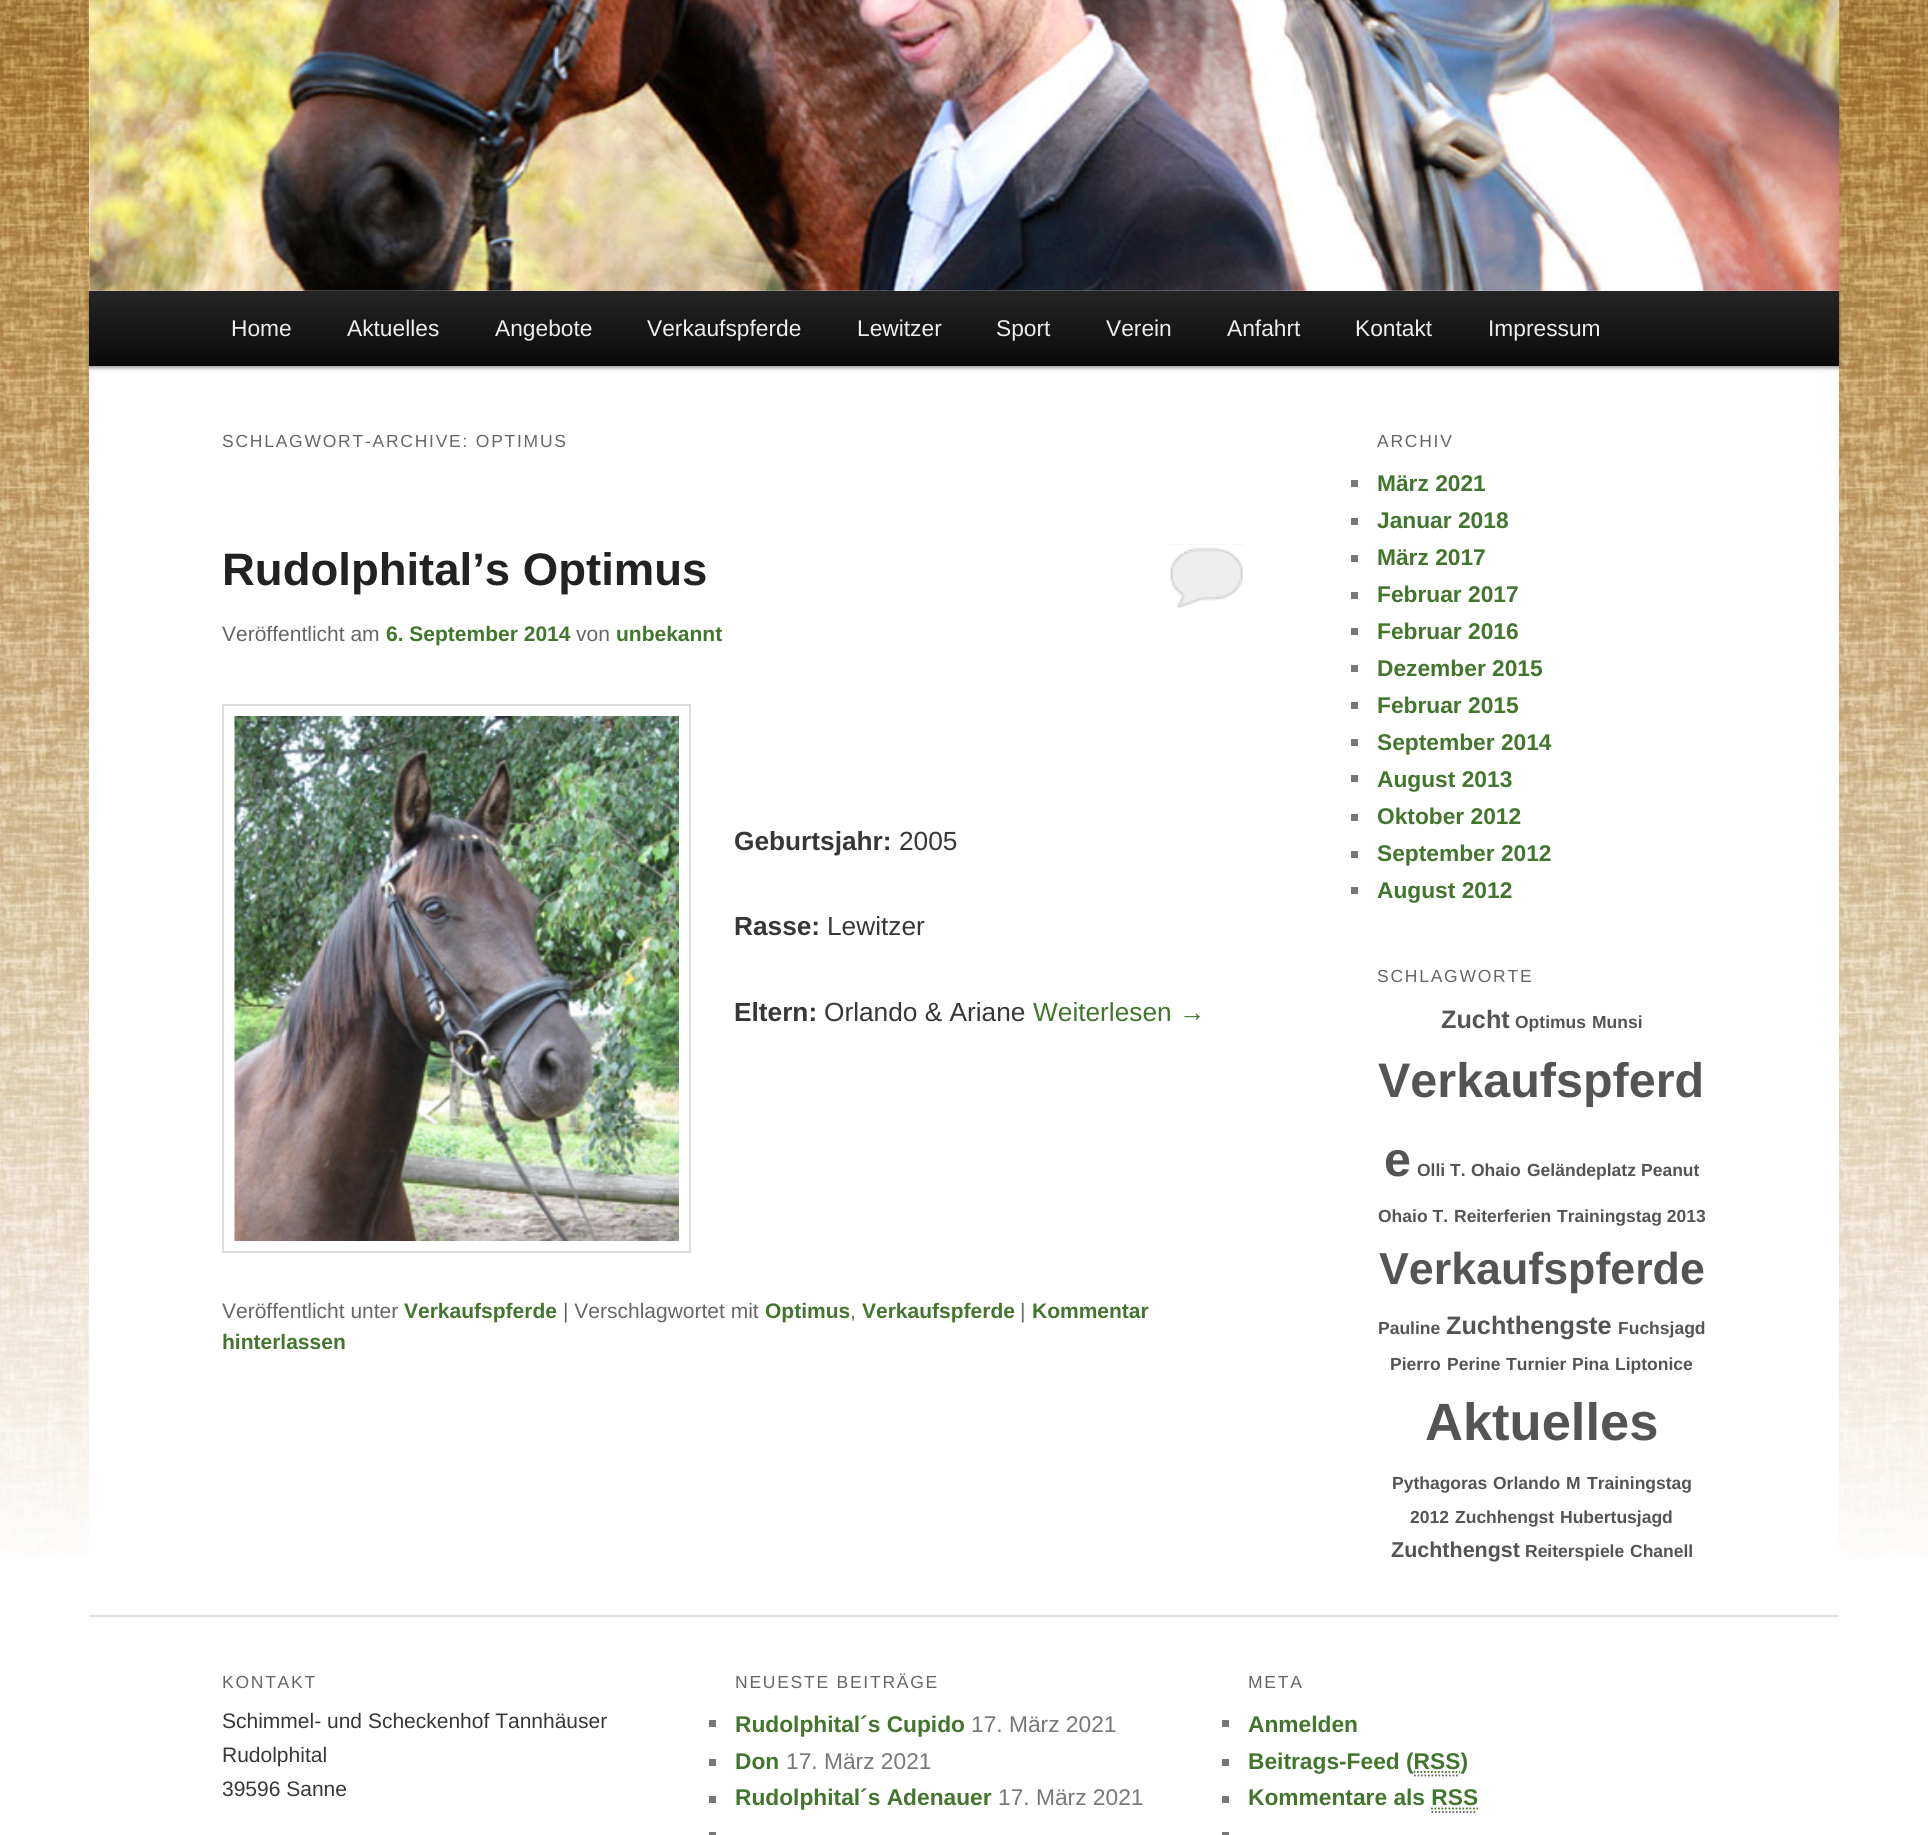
#include <cairo/cairo.h>
#include <math.h>
#include <stddef.h>

typedef struct { double x, y; const char *s; } line_t;
typedef struct { double x, y, w, h; unsigned color; } box_t;
static cairo_t *cr;

static void rgb(unsigned color)
{
	cairo_set_source_rgb(cr, (color >> 16) / 255.0, (color >> 8 & 255) / 255.0, (color & 255) / 255.0);
}

static void tracked(double x, double y, const char *s, double letter, double word)
{
	cairo_move_to(cr, x, y);
	while (*s) {
		char ch[5] = {0};
		int n = 0;
		do ch[n++] = *s++; while ((*s & 0xC0) == 0x80);
		cairo_show_text(cr, ch);
		cairo_rel_move_to(cr, letter + word * (*ch == ' '), 0);
	}
}

static void rrect(double x, double y, double w, double h, double r)
{
	cairo_new_sub_path(cr);
	cairo_arc(cr, x + w - r, y + h - r, r, 0, M_PI / 2);
	cairo_arc(cr, x + r, y + h - r, r, M_PI / 2, M_PI);
	cairo_arc(cr, x + r, y + r, r, M_PI, 1.5 * M_PI);
	cairo_arc(cr, x + w - r, y + r, r, 1.5 * M_PI, 2 * M_PI);
	cairo_close_path(cr);
}

static void soft_shadow(double x, double y, double w, double h, double r, double blur, double alpha)
{
	cairo_push_group_with_content(cr, CAIRO_CONTENT_ALPHA);
	cairo_set_operator(cr, CAIRO_OPERATOR_SOURCE);
	for (int i = 15; i >= -15 && fmin(w, h) + blur * i / 3 > 0; i -= 2) {
		double e = blur * i / 6;
		cairo_set_source_rgba(cr, 0, 0, 0, alpha * erfc((i - 1) / 8.5) / 2);
		rrect(x - e, y - e, w + 2 * e, h + 2 * e, fmax(0, fmin(r + e + blur * .6, fmin(w, h) / 2 + e)));
		cairo_fill(cr);
	}
	cairo_pattern_t *soft = cairo_pop_group(cr);
	cairo_mask(cr, soft);
	cairo_pattern_destroy(soft);
}

static void image(const char *path, double x, double y, double w, double h)
{
	cairo_surface_t *image = cairo_image_surface_create_from_png(path);
	cairo_save(cr);
	cairo_set_source_surface(cr, image, x, y);
	cairo_rectangle(cr, x, y, w, h);
	cairo_fill(cr);
	cairo_restore(cr);
	cairo_surface_destroy(image);
}

int main(void) {
	cairo_surface_t *surface = cairo_image_surface_create(CAIRO_FORMAT_RGB24, 1928, 1835);
	cr = cairo_create(surface);
	cairo_font_options_t *options = cairo_font_options_create();
	cairo_font_options_set_hint_metrics(options, CAIRO_HINT_METRICS_OFF);
	cairo_font_options_set_hint_style(options, CAIRO_HINT_STYLE_NONE);
	cairo_set_font_options(cr, options);
	cairo_set_miter_limit(cr, 4);
	cairo_pattern_t *gradient;
	rgb(0xffffff);
	cairo_paint(cr);
	image("img/1.png", 0, 0, 1928, 1559);
	rgb(0xffffff);
	cairo_rectangle(cr, 89, 0, 1750, 1559);
	cairo_fill(cr);
	rgb(0x000000);
	soft_shadow(89, 292, 1750, 76, 0, 2, 0.4);
	image("img/2.png", 89, 0, 1751, 291);
	gradient = cairo_pattern_create_linear(964, 290, 964, 366);
	cairo_pattern_add_color_stop_rgba(gradient, 0, 0.145, 0.145, 0.145, 1);
	cairo_pattern_add_color_stop_rgba(gradient, 1, 0.039, 0.039, 0.039, 1);
	cairo_set_source(cr, gradient);
	cairo_pattern_destroy(gradient);
	cairo_rectangle(cr, 89, 291, 1750, 75);
	cairo_fill(cr);
	rgb(0xeeeeee);
	cairo_rectangle(cr, 1169, 544, 75, 63);
	cairo_fill(cr);
	image("img/3.png", 1169, 544, 75, 64);
	cairo_rectangle(cr, 223, 705, 467, 547);
	rgb(0xdddddd);
	cairo_stroke(cr);
	image("img/4.png", 234, 716, 445, 525);
	{
		static const box_t items[] = {
			{1351, 480, 7, 7, 0x777777},
			{1351, 518, 7, 7, 0x777777},
			{1351, 555, 7, 7, 0x777777},
			{1351, 592, 7, 7, 0x777777},
			{1351, 628, 7, 7, 0x777777},
			{1351, 665, 7, 7, 0x777777},
			{1351, 702, 7, 7, 0x777777},
			{1351, 739, 7, 7, 0x777777},
			{1351, 775, 7, 7, 0x777777},
			{1351, 814, 7, 7, 0x777777},
			{1351, 851, 7, 7, 0x777777},
			{1351, 887, 7, 7, 0x777777},
			{89, 1615, 1750, 2, 0xdddddd},
			{709, 1720, 7, 7, 0x777777},
			{709, 1759, 7, 7, 0x777777},
			{709, 1796, 7, 7, 0x777777},
			{709, 1832, 7, 3, 0x777777},
			{1222, 1720, 7, 7, 0x777777},
			{1222, 1759, 7, 7, 0x777777},
		};
		for (size_t i = 0; i < sizeof items / sizeof *items; i++) {
			rgb(items[i].color);
			cairo_rectangle(cr, items[i].x, items[i].y, items[i].w, items[i].h);
			cairo_fill(cr);
		}
	}
	cairo_new_path(cr);
	cairo_move_to(cr, 1414, 1775.5);
	cairo_line_to(cr, 1459.5, 1775.5);
	rgb(0x666666);
	cairo_set_line_width(cr, 1.8);
	cairo_set_dash(cr, (double[]){1.75, 1.75}, 2, 0);
	cairo_stroke(cr);
	cairo_new_path(cr);
	cairo_move_to(cr, 1413.5, 1772);
	cairo_line_to(cr, 1460, 1772);
	rgb(0x42752d);
	cairo_stroke(cr);
	rgb(0x777777);
	cairo_rectangle(cr, 1222, 1796, 7, 7);
	cairo_fill(cr);
	cairo_new_path(cr);
	cairo_move_to(cr, 1431.5, 1812);
	cairo_line_to(cr, 1477, 1812);
	rgb(0x666666);
	cairo_stroke(cr);
	cairo_new_path(cr);
	cairo_move_to(cr, 1431, 1808.5);
	cairo_line_to(cr, 1478, 1808.5);
	rgb(0x42752d);
	cairo_stroke(cr);
	rgb(0x777777);
	cairo_rectangle(cr, 1222, 1832, 7, 3);
	cairo_fill(cr);
	cairo_select_font_face(cr, "Liberation Sans", CAIRO_FONT_SLANT_NORMAL, CAIRO_FONT_WEIGHT_NORMAL);
	cairo_set_font_size(cr, 22.75);
	rgb(0xeeeeee);
	{
		static const line_t items[] = {
			{231, 336, "Home"},
			{347, 336, "Aktuelles"},
			{495, 336, "Angebote"},
			{647, 336, "Verkaufspferde"},
			{857, 336, "Lewitzer"},
			{996, 336, "Sport"},
			{1106, 336, "Verein"},
			{1227, 336, "Anfahrt"},
			{1355, 336, "Kontakt"},
			{1488, 336, "Impressum"},
		};
		for (size_t i = 0; i < sizeof items / sizeof *items; i++) {
			cairo_move_to(cr, items[i].x, items[i].y);
			cairo_show_text(cr, items[i].s);
		}
	}
	cairo_set_font_size(cr, 17.5);
	rgb(0x666666);
	tracked(222, 447, "SCHLAGWORT-ARCHIVE: OPTIMUS", 1.75, 0);
	cairo_select_font_face(cr, "Liberation Sans", CAIRO_FONT_SLANT_NORMAL, CAIRO_FONT_WEIGHT_BOLD);
	cairo_set_font_size(cr, 45.5);
	rgb(0x222222);
	cairo_move_to(cr, 222, 585);
	cairo_show_text(cr, "Rudolphital’s Optimus");
	cairo_select_font_face(cr, "Liberation Sans", CAIRO_FONT_SLANT_NORMAL, CAIRO_FONT_WEIGHT_NORMAL);
	cairo_set_font_size(cr, 21);
	rgb(0x666666);
	cairo_move_to(cr, 222, 641);
	cairo_show_text(cr, "Veröffentlicht am");
	cairo_select_font_face(cr, "Liberation Sans", CAIRO_FONT_SLANT_NORMAL, CAIRO_FONT_WEIGHT_BOLD);
	rgb(0x42752d);
	cairo_move_to(cr, 386, 641);
	cairo_show_text(cr, "6. September 2014");
	cairo_select_font_face(cr, "Liberation Sans", CAIRO_FONT_SLANT_NORMAL, CAIRO_FONT_WEIGHT_NORMAL);
	rgb(0x666666);
	cairo_move_to(cr, 576, 641);
	cairo_show_text(cr, "von");
	cairo_select_font_face(cr, "Liberation Sans", CAIRO_FONT_SLANT_NORMAL, CAIRO_FONT_WEIGHT_BOLD);
	rgb(0x42752d);
	cairo_move_to(cr, 616, 641);
	cairo_show_text(cr, "unbekannt");
	cairo_set_font_size(cr, 26.25);
	rgb(0x373737);
	cairo_move_to(cr, 734, 850);
	cairo_show_text(cr, "Geburtsjahr:");
	cairo_select_font_face(cr, "Liberation Sans", CAIRO_FONT_SLANT_NORMAL, CAIRO_FONT_WEIGHT_NORMAL);
	cairo_move_to(cr, 899, 850);
	cairo_show_text(cr, "2005");
	cairo_select_font_face(cr, "Liberation Sans", CAIRO_FONT_SLANT_NORMAL, CAIRO_FONT_WEIGHT_BOLD);
	cairo_move_to(cr, 734, 935);
	cairo_show_text(cr, "Rasse:");
	cairo_select_font_face(cr, "Liberation Sans", CAIRO_FONT_SLANT_NORMAL, CAIRO_FONT_WEIGHT_NORMAL);
	cairo_move_to(cr, 827, 935);
	cairo_show_text(cr, "Lewitzer");
	cairo_select_font_face(cr, "Liberation Sans", CAIRO_FONT_SLANT_NORMAL, CAIRO_FONT_WEIGHT_BOLD);
	cairo_move_to(cr, 734, 1021);
	cairo_show_text(cr, "Eltern:");
	cairo_select_font_face(cr, "Liberation Sans", CAIRO_FONT_SLANT_NORMAL, CAIRO_FONT_WEIGHT_NORMAL);
	cairo_move_to(cr, 824, 1021);
	cairo_show_text(cr, "Orlando & Ariane");
	rgb(0x42752d);
	cairo_move_to(cr, 1033, 1021);
	cairo_show_text(cr, "Weiterlesen →");
	cairo_set_font_size(cr, 21);
	rgb(0x666666);
	cairo_move_to(cr, 222, 1318);
	cairo_show_text(cr, "Veröffentlicht unter");
	cairo_select_font_face(cr, "Liberation Sans", CAIRO_FONT_SLANT_NORMAL, CAIRO_FONT_WEIGHT_BOLD);
	rgb(0x42752d);
	cairo_move_to(cr, 404, 1318);
	cairo_show_text(cr, "Verkaufspferde");
	cairo_select_font_face(cr, "Liberation Sans", CAIRO_FONT_SLANT_NORMAL, CAIRO_FONT_WEIGHT_NORMAL);
	rgb(0x666666);
	cairo_move_to(cr, 563, 1318);
	cairo_show_text(cr, "| Verschlagwortet mit");
	cairo_select_font_face(cr, "Liberation Sans", CAIRO_FONT_SLANT_NORMAL, CAIRO_FONT_WEIGHT_BOLD);
	rgb(0x42752d);
	cairo_move_to(cr, 765, 1318);
	cairo_show_text(cr, "Optimus");
	cairo_select_font_face(cr, "Liberation Sans", CAIRO_FONT_SLANT_NORMAL, CAIRO_FONT_WEIGHT_NORMAL);
	rgb(0x666666);
	cairo_move_to(cr, 850, 1318);
	cairo_show_text(cr, ",");
	cairo_select_font_face(cr, "Liberation Sans", CAIRO_FONT_SLANT_NORMAL, CAIRO_FONT_WEIGHT_BOLD);
	rgb(0x42752d);
	cairo_move_to(cr, 862, 1318);
	cairo_show_text(cr, "Verkaufspferde");
	cairo_select_font_face(cr, "Liberation Sans", CAIRO_FONT_SLANT_NORMAL, CAIRO_FONT_WEIGHT_NORMAL);
	rgb(0x666666);
	cairo_move_to(cr, 1020, 1318);
	cairo_show_text(cr, "|");
	cairo_select_font_face(cr, "Liberation Sans", CAIRO_FONT_SLANT_NORMAL, CAIRO_FONT_WEIGHT_BOLD);
	rgb(0x42752d);
	cairo_move_to(cr, 1032, 1318);
	cairo_show_text(cr, "Kommentar");
	cairo_move_to(cr, 222, 1349);
	cairo_show_text(cr, "hinterlassen");
	cairo_select_font_face(cr, "Liberation Sans", CAIRO_FONT_SLANT_NORMAL, CAIRO_FONT_WEIGHT_NORMAL);
	cairo_set_font_size(cr, 17.5);
	rgb(0x666666);
	tracked(1377, 447, "ARCHIV", 1.75, 0);
	cairo_select_font_face(cr, "Liberation Sans", CAIRO_FONT_SLANT_NORMAL, CAIRO_FONT_WEIGHT_BOLD);
	cairo_set_font_size(cr, 22.75);
	rgb(0x42752d);
	{
		static const line_t items[] = {
			{1377, 491, "März 2021"},
			{1377, 528, "Januar 2018"},
			{1377, 565, "März 2017"},
			{1377, 602, "Februar 2017"},
			{1377, 639, "Februar 2016"},
			{1377, 676, "Dezember 2015"},
			{1377, 713, "Februar 2015"},
			{1377, 750, "September 2014"},
			{1377, 787, "August 2013"},
			{1377, 824, "Oktober 2012"},
			{1377, 861, "September 2012"},
			{1377, 898, "August 2012"},
		};
		for (size_t i = 0; i < sizeof items / sizeof *items; i++) {
			cairo_move_to(cr, items[i].x, items[i].y);
			cairo_show_text(cr, items[i].s);
		}
	}
	cairo_select_font_face(cr, "Liberation Sans", CAIRO_FONT_SLANT_NORMAL, CAIRO_FONT_WEIGHT_NORMAL);
	cairo_set_font_size(cr, 17.5);
	rgb(0x666666);
	tracked(1377, 982, "SCHLAGWORTE", 1.75, 0);
	cairo_select_font_face(cr, "Liberation Sans", CAIRO_FONT_SLANT_NORMAL, CAIRO_FONT_WEIGHT_BOLD);
	cairo_set_font_size(cr, 25.25);
	rgb(0x545454);
	cairo_move_to(cr, 1441, 1028);
	cairo_show_text(cr, "Zucht");
	cairo_set_font_size(cr, 17.5);
	cairo_move_to(cr, 1515, 1028);
	cairo_show_text(cr, "Optimus");
	cairo_move_to(cr, 1592, 1028);
	cairo_show_text(cr, "Munsi");
	cairo_set_font_size(cr, 48.5);
	cairo_move_to(cr, 1378, 1097);
	cairo_show_text(cr, "Verkaufspferd");
	cairo_move_to(cr, 1384, 1176);
	cairo_show_text(cr, "e");
	cairo_set_font_size(cr, 17.5);
	{
		static const line_t items[] = {
			{1417, 1176, "Olli T."},
			{1471, 1176, "Ohaio"},
			{1527, 1176, "Geländeplatz"},
			{1641, 1176, "Peanut"},
			{1378, 1222, "Ohaio T."},
			{1454, 1222, "Reiterferien"},
			{1557, 1222, "Trainingstag 2013"},
		};
		for (size_t i = 0; i < sizeof items / sizeof *items; i++) {
			cairo_move_to(cr, items[i].x, items[i].y);
			cairo_show_text(cr, items[i].s);
		}
	}
	cairo_set_font_size(cr, 44.75);
	cairo_move_to(cr, 1379, 1284);
	cairo_show_text(cr, "Verkaufspferde");
	cairo_set_font_size(cr, 17.5);
	cairo_move_to(cr, 1378, 1334);
	cairo_show_text(cr, "Pauline");
	cairo_set_font_size(cr, 25.25);
	cairo_move_to(cr, 1446, 1334);
	cairo_show_text(cr, "Zuchthengste");
	cairo_set_font_size(cr, 17.5);
	{
		static const line_t items[] = {
			{1618, 1334, "Fuchsjagd"},
			{1390, 1370, "Pierro"},
			{1447, 1370, "Perine"},
			{1506, 1370, "Turnier"},
			{1572, 1370, "Pina"},
			{1615, 1370, "Liptonice"},
		};
		for (size_t i = 0; i < sizeof items / sizeof *items; i++) {
			cairo_move_to(cr, items[i].x, items[i].y);
			cairo_show_text(cr, items[i].s);
		}
	}
	cairo_set_font_size(cr, 52.5);
	cairo_move_to(cr, 1425, 1440);
	cairo_show_text(cr, "Aktuelles");
	cairo_set_font_size(cr, 17.5);
	{
		static const line_t items[] = {
			{1392, 1489, "Pythagoras"},
			{1493, 1489, "Orlando"},
			{1566, 1489, "M"},
			{1587, 1489, "Trainingstag"},
			{1410, 1523, "2012"},
			{1455, 1523, "Zuchhengst"},
			{1560, 1523, "Hubertusjagd"},
		};
		for (size_t i = 0; i < sizeof items / sizeof *items; i++) {
			cairo_move_to(cr, items[i].x, items[i].y);
			cairo_show_text(cr, items[i].s);
		}
	}
	cairo_set_font_size(cr, 21.5);
	cairo_move_to(cr, 1391, 1557);
	cairo_show_text(cr, "Zuchthengst");
	cairo_set_font_size(cr, 17.5);
	cairo_move_to(cr, 1525, 1557);
	cairo_show_text(cr, "Reiterspiele");
	cairo_move_to(cr, 1630, 1557);
	cairo_show_text(cr, "Chanell");
	cairo_select_font_face(cr, "Liberation Sans", CAIRO_FONT_SLANT_NORMAL, CAIRO_FONT_WEIGHT_NORMAL);
	rgb(0x666666);
	tracked(222, 1688, "KONTAKT", 1.75, 0);
	cairo_set_font_size(cr, 21);
	rgb(0x373737);
	{
		static const line_t items[] = {
			{222, 1728, "Schimmel- und Scheckenhof Tannhäuser"},
			{222, 1762, "Rudolphital"},
			{222, 1796, "39596 Sanne"},
		};
		for (size_t i = 0; i < sizeof items / sizeof *items; i++) {
			cairo_move_to(cr, items[i].x, items[i].y);
			cairo_show_text(cr, items[i].s);
		}
	}
	cairo_set_font_size(cr, 17.5);
	rgb(0x666666);
	tracked(735, 1688, "NEUESTE BEITRÄGE", 1.75, 0);
	cairo_select_font_face(cr, "Liberation Sans", CAIRO_FONT_SLANT_NORMAL, CAIRO_FONT_WEIGHT_BOLD);
	cairo_set_font_size(cr, 22.75);
	rgb(0x42752d);
	cairo_move_to(cr, 735, 1732);
	cairo_show_text(cr, "Rudolphital´s Cupido");
	cairo_select_font_face(cr, "Liberation Sans", CAIRO_FONT_SLANT_NORMAL, CAIRO_FONT_WEIGHT_NORMAL);
	rgb(0x777777);
	cairo_move_to(cr, 971, 1732);
	cairo_show_text(cr, "17. März 2021");
	cairo_select_font_face(cr, "Liberation Sans", CAIRO_FONT_SLANT_NORMAL, CAIRO_FONT_WEIGHT_BOLD);
	rgb(0x42752d);
	cairo_move_to(cr, 735, 1769);
	cairo_show_text(cr, "Don");
	cairo_select_font_face(cr, "Liberation Sans", CAIRO_FONT_SLANT_NORMAL, CAIRO_FONT_WEIGHT_NORMAL);
	rgb(0x777777);
	cairo_move_to(cr, 786, 1769);
	cairo_show_text(cr, "17. März 2021");
	cairo_select_font_face(cr, "Liberation Sans", CAIRO_FONT_SLANT_NORMAL, CAIRO_FONT_WEIGHT_BOLD);
	rgb(0x42752d);
	cairo_move_to(cr, 735, 1805);
	cairo_show_text(cr, "Rudolphital´s Adenauer");
	cairo_select_font_face(cr, "Liberation Sans", CAIRO_FONT_SLANT_NORMAL, CAIRO_FONT_WEIGHT_NORMAL);
	rgb(0x777777);
	cairo_move_to(cr, 998, 1805);
	cairo_show_text(cr, "17. März 2021");
	cairo_set_font_size(cr, 17.5);
	rgb(0x666666);
	tracked(1248, 1688, "META", 1.75, 0);
	cairo_select_font_face(cr, "Liberation Sans", CAIRO_FONT_SLANT_NORMAL, CAIRO_FONT_WEIGHT_BOLD);
	cairo_set_font_size(cr, 22.75);
	rgb(0x42752d);
	{
		static const line_t items[] = {
			{1248, 1732, "Anmelden"},
			{1248, 1769, "Beitrags-Feed (RSS)"},
			{1248, 1805, "Kommentare als RSS"},
		};
		for (size_t i = 0; i < sizeof items / sizeof *items; i++) {
			cairo_move_to(cr, items[i].x, items[i].y);
			cairo_show_text(cr, items[i].s);
		}
	}
	cairo_surface_write_to_png(surface, "page.png");
	cairo_font_options_destroy(options);
	cairo_destroy(cr);
	cairo_surface_destroy(surface);
	return 0;
}
